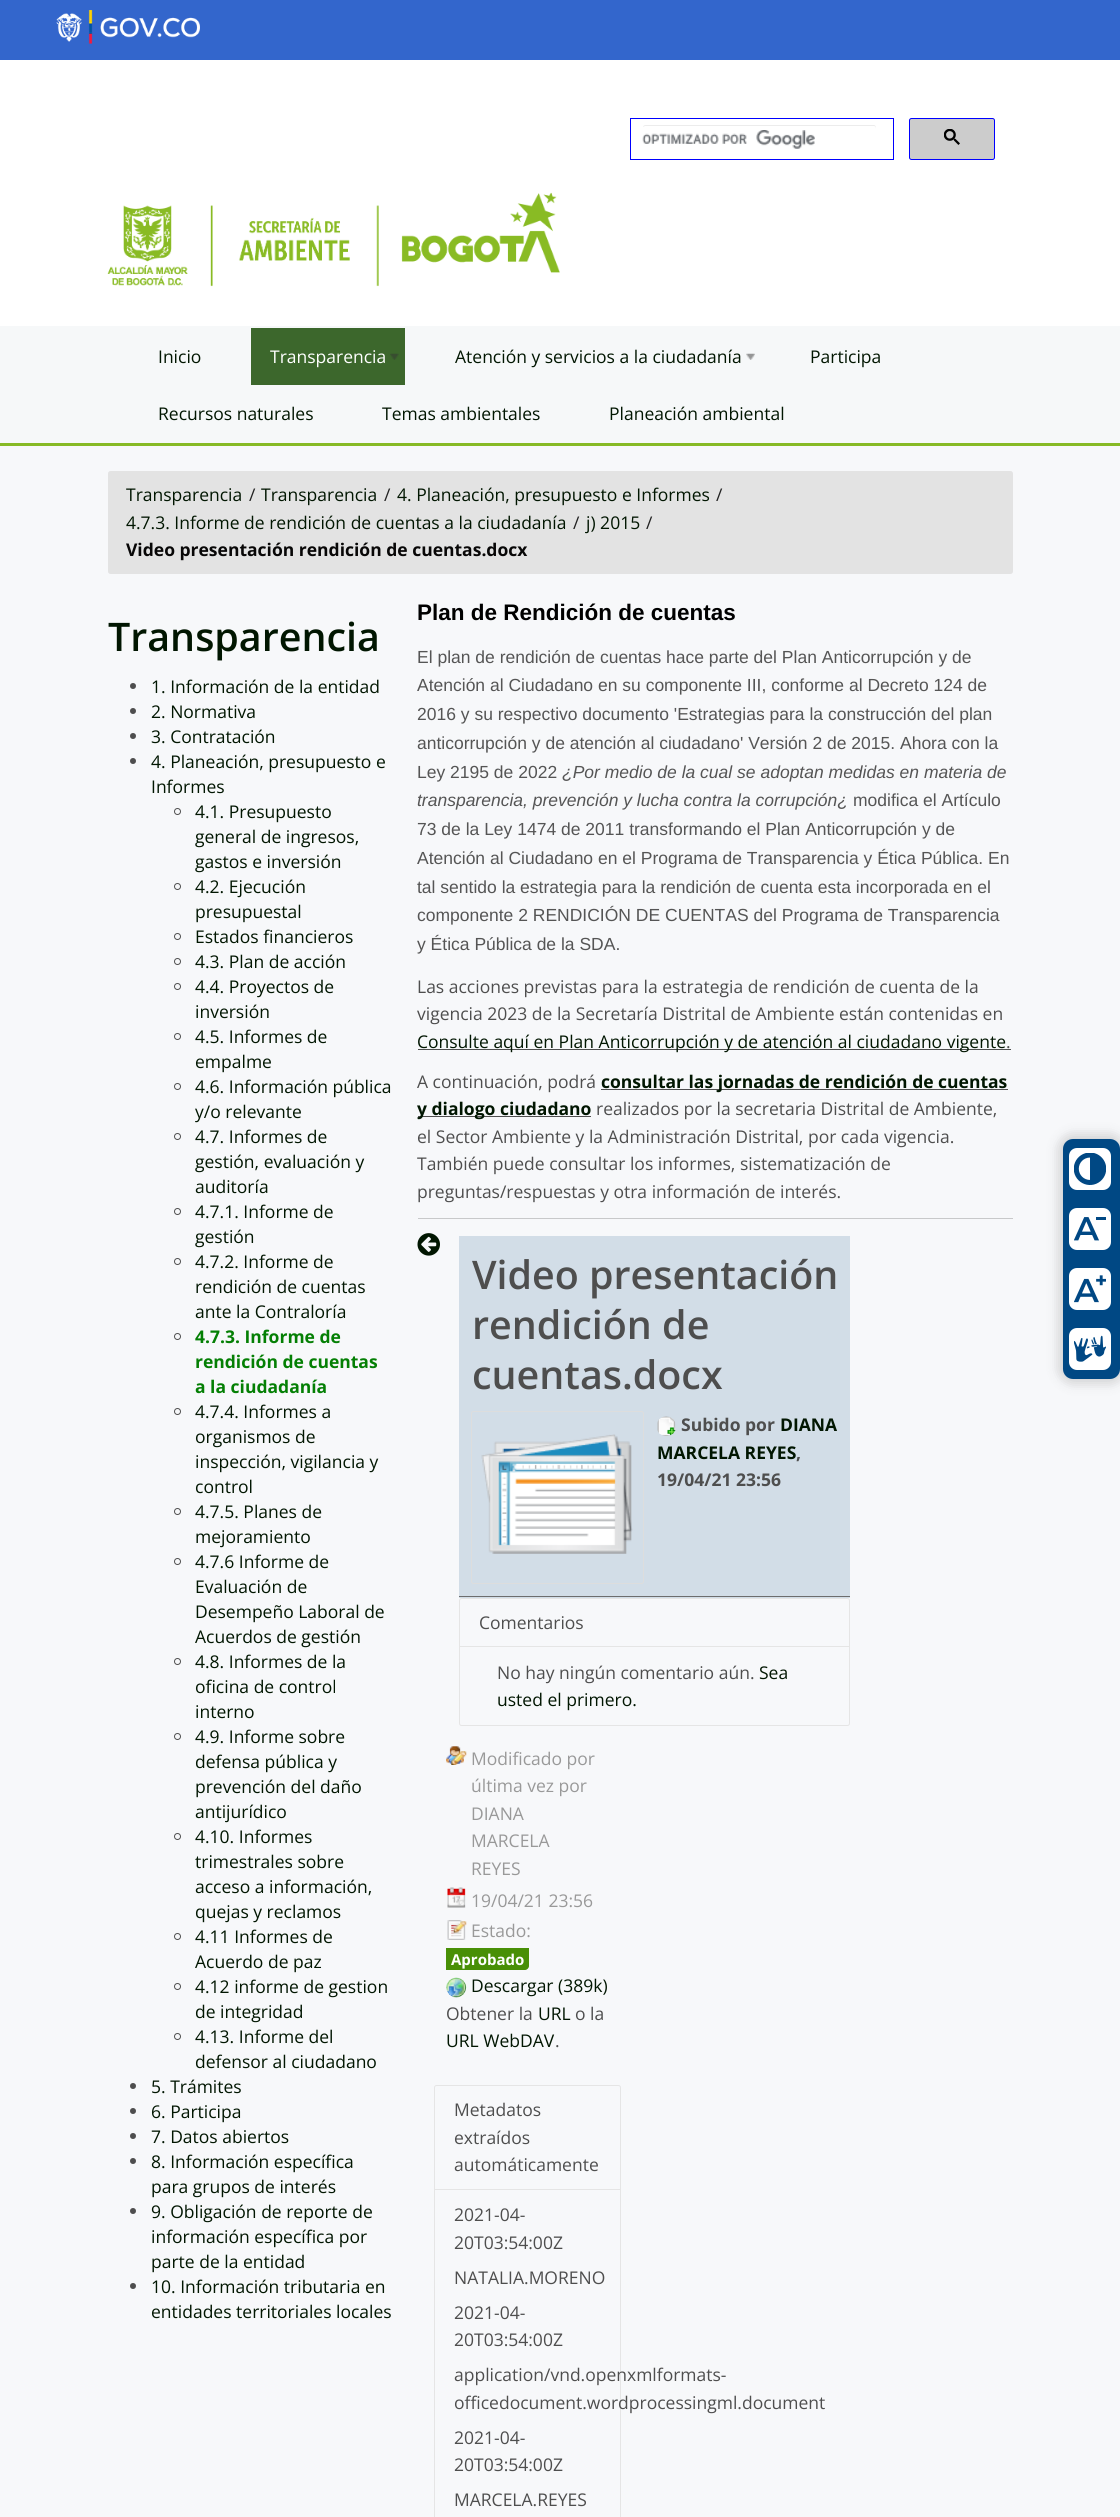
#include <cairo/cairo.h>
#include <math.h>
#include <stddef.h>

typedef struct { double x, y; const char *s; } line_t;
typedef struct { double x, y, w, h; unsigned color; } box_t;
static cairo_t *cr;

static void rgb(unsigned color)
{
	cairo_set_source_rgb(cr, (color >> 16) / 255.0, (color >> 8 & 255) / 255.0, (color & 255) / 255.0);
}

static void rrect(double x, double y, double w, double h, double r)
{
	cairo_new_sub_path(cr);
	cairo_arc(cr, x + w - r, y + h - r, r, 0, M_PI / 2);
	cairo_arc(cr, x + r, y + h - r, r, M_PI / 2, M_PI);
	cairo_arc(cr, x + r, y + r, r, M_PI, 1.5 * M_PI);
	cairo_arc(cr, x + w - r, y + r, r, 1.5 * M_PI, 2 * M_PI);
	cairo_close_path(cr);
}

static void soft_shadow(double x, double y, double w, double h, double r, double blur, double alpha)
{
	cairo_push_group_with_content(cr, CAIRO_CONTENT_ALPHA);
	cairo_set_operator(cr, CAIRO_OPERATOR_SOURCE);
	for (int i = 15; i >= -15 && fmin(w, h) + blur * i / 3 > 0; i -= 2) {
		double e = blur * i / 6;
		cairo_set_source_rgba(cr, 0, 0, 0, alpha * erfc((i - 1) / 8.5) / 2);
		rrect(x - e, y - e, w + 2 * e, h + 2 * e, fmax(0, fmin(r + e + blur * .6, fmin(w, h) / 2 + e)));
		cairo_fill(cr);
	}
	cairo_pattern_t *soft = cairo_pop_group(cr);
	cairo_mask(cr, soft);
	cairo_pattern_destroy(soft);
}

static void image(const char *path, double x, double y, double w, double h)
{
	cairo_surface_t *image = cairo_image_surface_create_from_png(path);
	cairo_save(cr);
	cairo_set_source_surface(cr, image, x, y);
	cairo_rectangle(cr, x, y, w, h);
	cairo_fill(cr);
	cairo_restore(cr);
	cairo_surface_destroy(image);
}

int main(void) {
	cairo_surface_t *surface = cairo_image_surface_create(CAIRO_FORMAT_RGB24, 1120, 2517);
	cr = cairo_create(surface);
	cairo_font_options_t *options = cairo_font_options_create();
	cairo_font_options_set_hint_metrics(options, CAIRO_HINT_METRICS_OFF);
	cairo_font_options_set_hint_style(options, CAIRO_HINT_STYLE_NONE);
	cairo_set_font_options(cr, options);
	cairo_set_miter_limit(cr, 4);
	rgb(0xffffff);
	cairo_paint(cr);
	rgb(0x3366cc);
	cairo_rectangle(cr, 0, 0, 1120, 60);
	cairo_fill(cr);
	image("img/1.png", 56, 10, 144, 34);
	cairo_rectangle(cr, 630.5, 118.5, 263, 41);
	rgb(0x0000ff);
	cairo_set_line_width(cr, 1);
	cairo_stroke(cr);
	image("img/2.png", 642, 130, 173, 19);
	rgb(0xececec);
	cairo_new_path(cr);
	cairo_move_to(cr, 645, 126);
	cairo_line_to(cr, 874, 126);
	cairo_curve_to(cr, 875, 126, 876, 127, 876, 129);
	cairo_line_to(cr, 876, 128);
	cairo_curve_to(cr, 876, 126, 875, 125, 874, 125);
	cairo_line_to(cr, 646, 125);
	cairo_curve_to(cr, 644, 125, 643, 126, 643, 127);
	cairo_close_path(cr);
	cairo_fill(cr);
	rgb(0xcccccc);
	rrect(909.5, 118.5, 85, 41, 2);
	cairo_fill_preserve(cr);
	rgb(0x0000ff);
	cairo_stroke(cr);
	image("img/3.png", 944, 129, 16, 16);
	image("img/4.png", 107, 192, 453, 95);
	{
		static const box_t items[] = {
			{0, 326, 1120, 117, 0xf6f8f9},
			{0, 443, 1120, 3, 0x87ba25},
			{251, 328, 154, 57, 0x3c672c},
		};
		for (size_t i = 0; i < sizeof items / sizeof *items; i++) {
			rgb(items[i].color);
			cairo_rectangle(cr, items[i].x, items[i].y, items[i].w, items[i].h);
			cairo_fill(cr);
		}
	}
	image("img/5.png", 390, 353, 9, 7);
	image("img/6.png", 746, 353, 9, 7);
	rgb(0xf7f8fa);
	cairo_rectangle(cr, 0, 446, 1120, 2071);
	cairo_fill(cr);
	rgb(0xe3e3e3);
	rrect(108, 471, 905, 103, 2.5);
	cairo_fill(cr);
	rgb(0x4e4e4e);
	cairo_arc(cr, 133, 686, 3, 0, 2 * M_PI);
	cairo_fill(cr);
	cairo_arc(cr, 133, 711, 3, 0, 2 * M_PI);
	cairo_fill(cr);
	cairo_arc(cr, 133, 736, 3, 0, 2 * M_PI);
	cairo_fill(cr);
	cairo_arc(cr, 133, 761, 3, 0, 2 * M_PI);
	cairo_fill(cr);
	cairo_arc(cr, 177.5, 811.5, 3, 0, 2 * M_PI);
	cairo_stroke(cr);
	cairo_arc(cr, 177.5, 886.5, 3, 0, 2 * M_PI);
	cairo_stroke(cr);
	cairo_arc(cr, 177.5, 936.5, 3, 0, 2 * M_PI);
	cairo_stroke(cr);
	cairo_arc(cr, 177.5, 961.5, 3, 0, 2 * M_PI);
	cairo_stroke(cr);
	cairo_arc(cr, 177.5, 986.5, 3, 0, 2 * M_PI);
	cairo_stroke(cr);
	cairo_arc(cr, 177.5, 1036.5, 3, 0, 2 * M_PI);
	cairo_stroke(cr);
	cairo_arc(cr, 177.5, 1086.5, 3, 0, 2 * M_PI);
	cairo_stroke(cr);
	cairo_arc(cr, 177.5, 1136.5, 3, 0, 2 * M_PI);
	cairo_stroke(cr);
	cairo_arc(cr, 177.5, 1211.5, 3, 0, 2 * M_PI);
	cairo_stroke(cr);
	cairo_arc(cr, 177.5, 1261.5, 3, 0, 2 * M_PI);
	cairo_stroke(cr);
	cairo_arc(cr, 177.5, 1336.5, 3, 0, 2 * M_PI);
	cairo_stroke(cr);
	cairo_arc(cr, 177.5, 1411.5, 3, 0, 2 * M_PI);
	cairo_stroke(cr);
	cairo_arc(cr, 177.5, 1511.5, 3, 0, 2 * M_PI);
	cairo_stroke(cr);
	cairo_arc(cr, 177.5, 1561.5, 3, 0, 2 * M_PI);
	cairo_stroke(cr);
	cairo_arc(cr, 177.5, 1661.5, 3, 0, 2 * M_PI);
	cairo_stroke(cr);
	cairo_arc(cr, 177.5, 1736.5, 3, 0, 2 * M_PI);
	cairo_stroke(cr);
	cairo_arc(cr, 177.5, 1836.5, 3, 0, 2 * M_PI);
	cairo_stroke(cr);
	cairo_arc(cr, 177.5, 1936.5, 3, 0, 2 * M_PI);
	cairo_stroke(cr);
	cairo_arc(cr, 177.5, 1986.5, 3, 0, 2 * M_PI);
	cairo_stroke(cr);
	cairo_arc(cr, 177.5, 2036.5, 3, 0, 2 * M_PI);
	cairo_stroke(cr);
	cairo_arc(cr, 133, 2086, 3, 0, 2 * M_PI);
	cairo_fill(cr);
	cairo_arc(cr, 133, 2111, 3, 0, 2 * M_PI);
	cairo_fill(cr);
	cairo_arc(cr, 133, 2136, 3, 0, 2 * M_PI);
	cairo_fill(cr);
	cairo_arc(cr, 133, 2161, 3, 0, 2 * M_PI);
	cairo_fill(cr);
	cairo_arc(cr, 133, 2211, 3, 0, 2 * M_PI);
	cairo_fill(cr);
	cairo_arc(cr, 133, 2286, 3, 0, 2 * M_PI);
	cairo_fill(cr);
	{
		static const box_t items[] = {
			{418, 1049, 593, 1, 0x4e4e4e},
			{601, 1089, 407, 1, 0x4e4e4e},
			{418, 1116, 173, 1, 0x4e4e4e},
			{418, 1218, 595, 1, 0xc8c9ca},
		};
		for (size_t i = 0; i < sizeof items / sizeof *items; i++) {
			rgb(items[i].color);
			cairo_rectangle(cr, items[i].x, items[i].y, items[i].w, items[i].h);
			cairo_fill(cr);
		}
	}
	image("img/7.png", 417, 1233, 23, 23);
	rgb(0xd2dde7);
	cairo_rectangle(cr, 459, 1236, 391, 362);
	cairo_fill(cr);
	rgb(0x6d6d6e);
	cairo_rectangle(cr, 459, 1596, 391, 1);
	cairo_fill(cr);
	rrect(471.5, 1411.5, 172, 172, 2);
	rgb(0xdddddd);
	cairo_stroke(cr);
	image("img/8.png", 481, 1434, 152, 120);
	image("img/9.png", 657, 1416, 19, 20);
	rrect(459.5, 1598.5, 390, 127, 2);
	rgb(0xe5e5e5);
	cairo_stroke(cr);
	cairo_rectangle(cr, 460, 1646, 389, 1);
	cairo_fill(cr);
	image("img/10.png", 446, 1746, 21, 19);
	image("img/11.png", 447, 1887, 19, 21);
	image("img/12.png", 447, 1920, 20, 20);
	rgb(0x488f06);
	cairo_new_path(cr);
	cairo_move_to(cr, 446, 1948);
	cairo_line_to(cr, 529, 1948);
	cairo_line_to(cr, 529, 1966);
	cairo_curve_to(cr, 529, 1968, 527, 1970, 525, 1970);
	cairo_line_to(cr, 446, 1970);
	cairo_close_path(cr);
	cairo_fill(cr);
	image("img/13.png", 446, 1977, 21, 21);
	rrect(434.5, 2085.5, 186, 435, 2);
	rgb(0xe5e5e5);
	cairo_stroke(cr);
	cairo_rectangle(cr, 435, 2189, 185, 1);
	cairo_fill(cr);
	rgb(0x000000);
	soft_shadow(1059, 1135, 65, 248, 14, 6, 0.17);
	rgb(0x004884);
	rrect(1063, 1139, 57, 240, 10);
	cairo_fill(cr);
	rgb(0xffffff);
	rrect(1069, 1148, 42, 42, 8);
	cairo_fill(cr);
	image("img/14.png", 1074, 1153, 32, 32);
	rrect(1069, 1208, 42, 42, 8);
	cairo_fill(cr);
	image("img/15.png", 1074, 1217, 32, 24);
	rrect(1069, 1268, 42, 42, 8);
	cairo_fill(cr);
	image("img/16.png", 1074, 1275, 32, 28);
	rrect(1069, 1328, 42, 42, 8);
	cairo_fill(cr);
	image("img/17.png", 1074, 1335, 32, 27);
	cairo_select_font_face(cr, "Open Sans", CAIRO_FONT_SLANT_NORMAL, CAIRO_FONT_WEIGHT_NORMAL);
	cairo_set_font_size(cr, 17.5);
	rgb(0x011601);
	cairo_move_to(cr, 158, 363);
	cairo_show_text(cr, "Inicio");
	rgb(0xffffff);
	cairo_move_to(cr, 270, 363);
	cairo_show_text(cr, "Transparencia");
	rgb(0x011601);
	{
		static const line_t items[] = {
			{455, 363, "Atención y servicios a la ciudadanía"},
			{810, 363, "Participa"},
			{158, 420, "Recursos naturales"},
			{382, 420, "Temas ambientales"},
			{609, 420, "Planeación ambiental"},
			{126, 501, "Transparencia"},
		};
		for (size_t i = 0; i < sizeof items / sizeof *items; i++) {
			cairo_move_to(cr, items[i].x, items[i].y);
			cairo_show_text(cr, items[i].s);
		}
	}
	rgb(0x222222);
	cairo_move_to(cr, 249, 501);
	cairo_show_text(cr, "/");
	rgb(0x011601);
	cairo_move_to(cr, 261, 501);
	cairo_show_text(cr, "Transparencia");
	rgb(0x222222);
	cairo_move_to(cr, 384, 501);
	cairo_show_text(cr, "/");
	rgb(0x011601);
	cairo_move_to(cr, 397, 501);
	cairo_show_text(cr, "4. Planeación, presupuesto e Informes");
	rgb(0x222222);
	cairo_move_to(cr, 716, 501);
	cairo_show_text(cr, "/");
	rgb(0x011601);
	cairo_move_to(cr, 126, 529);
	cairo_show_text(cr, "4.7.3. Informe de rendición de cuentas a la ciudadanía");
	rgb(0x222222);
	cairo_move_to(cr, 573, 529);
	cairo_show_text(cr, "/");
	rgb(0x011601);
	cairo_move_to(cr, 586, 529);
	cairo_show_text(cr, "j) 2015");
	rgb(0x222222);
	cairo_move_to(cr, 646, 529);
	cairo_show_text(cr, "/");
	cairo_select_font_face(cr, "Open Sans", CAIRO_FONT_SLANT_NORMAL, CAIRO_FONT_WEIGHT_BOLD);
	rgb(0x080707);
	cairo_move_to(cr, 126, 556);
	cairo_show_text(cr, "Video presentación rendición de cuentas.docx");
	cairo_select_font_face(cr, "Open Sans SemiBold", CAIRO_FONT_SLANT_NORMAL, CAIRO_FONT_WEIGHT_NORMAL);
	cairo_set_font_size(cr, 39.4);
	rgb(0x011601);
	cairo_move_to(cr, 108, 651);
	cairo_show_text(cr, "Transparencia");
	cairo_select_font_face(cr, "Open Sans", CAIRO_FONT_SLANT_NORMAL, CAIRO_FONT_WEIGHT_NORMAL);
	cairo_set_font_size(cr, 17.5);
	{
		static const line_t items[] = {
			{151, 693, "1. Información de la entidad"},
			{151, 718, "2. Normativa"},
			{151, 743, "3. Contratación"},
			{151, 768, "4. Planeación, presupuesto e"},
			{151, 793, "Informes"},
			{195, 818, "4.1. Presupuesto"},
			{195, 843, "general de ingresos,"},
			{195, 868, "gastos e inversión"},
			{195, 893, "4.2. Ejecución"},
			{195, 918, "presupuestal"},
			{195, 943, "Estados financieros"},
			{195, 968, "4.3. Plan de acción"},
			{195, 993, "4.4. Proyectos de"},
			{195, 1018, "inversión"},
			{195, 1043, "4.5. Informes de"},
			{195, 1068, "empalme"},
			{195, 1093, "4.6. Información pública"},
			{195, 1118, "y/o relevante"},
			{195, 1143, "4.7. Informes de"},
			{195, 1168, "gestión, evaluación y"},
			{195, 1193, "auditoría"},
			{195, 1218, "4.7.1. Informe de"},
			{195, 1243, "gestión"},
			{195, 1268, "4.7.2. Informe de"},
			{195, 1293, "rendición de cuentas"},
			{195, 1318, "ante la Contraloría"},
		};
		for (size_t i = 0; i < sizeof items / sizeof *items; i++) {
			cairo_move_to(cr, items[i].x, items[i].y);
			cairo_show_text(cr, items[i].s);
		}
	}
	cairo_select_font_face(cr, "Open Sans", CAIRO_FONT_SLANT_NORMAL, CAIRO_FONT_WEIGHT_BOLD);
	rgb(0x047f04);
	{
		static const line_t items[] = {
			{195, 1343, "4.7.3. Informe de"},
			{195, 1368, "rendición de cuentas"},
			{195, 1393, "a la ciudadanía"},
		};
		for (size_t i = 0; i < sizeof items / sizeof *items; i++) {
			cairo_move_to(cr, items[i].x, items[i].y);
			cairo_show_text(cr, items[i].s);
		}
	}
	cairo_select_font_face(cr, "Open Sans", CAIRO_FONT_SLANT_NORMAL, CAIRO_FONT_WEIGHT_NORMAL);
	rgb(0x011601);
	{
		static const line_t items[] = {
			{195, 1418, "4.7.4. Informes a"},
			{195, 1443, "organismos de"},
			{195, 1468, "inspección, vigilancia y"},
			{195, 1493, "control"},
			{195, 1518, "4.7.5. Planes de"},
			{195, 1543, "mejoramiento"},
			{195, 1568, "4.7.6 Informe de"},
			{195, 1593, "Evaluación de"},
			{195, 1618, "Desempeño Laboral de"},
			{195, 1643, "Acuerdos de gestión"},
			{195, 1668, "4.8. Informes de la"},
			{195, 1693, "oficina de control"},
			{195, 1718, "interno"},
			{195, 1743, "4.9. Informe sobre"},
			{195, 1768, "defensa pública y"},
			{195, 1793, "prevención del daño"},
			{195, 1818, "antijurídico"},
			{195, 1843, "4.10. Informes"},
			{195, 1868, "trimestrales sobre"},
			{195, 1893, "acceso a información,"},
			{195, 1918, "quejas y reclamos"},
			{195, 1943, "4.11 Informes de"},
			{195, 1968, "Acuerdo de paz"},
			{195, 1993, "4.12 informe de gestion"},
			{195, 2018, "de integridad"},
			{195, 2043, "4.13. Informe del"},
			{195, 2068, "defensor al ciudadano"},
			{151, 2093, "5. Trámites"},
			{151, 2118, "6. Participa"},
			{151, 2143, "7. Datos abiertos"},
			{151, 2168, "8. Información específica"},
			{151, 2193, "para grupos de interés"},
			{151, 2218, "9. Obligación de reporte de"},
			{151, 2243, "información específica por"},
			{151, 2268, "parte de la entidad"},
			{151, 2293, "10. Información tributaria en"},
			{151, 2318, "entidades territoriales locales"},
		};
		for (size_t i = 0; i < sizeof items / sizeof *items; i++) {
			cairo_move_to(cr, items[i].x, items[i].y);
			cairo_show_text(cr, items[i].s);
		}
	}
	cairo_select_font_face(cr, "Liberation Sans", CAIRO_FONT_SLANT_NORMAL, CAIRO_FONT_WEIGHT_BOLD);
	cairo_set_font_size(cr, 22.5);
	rgb(0x000000);
	cairo_move_to(cr, 417, 620);
	cairo_show_text(cr, "Plan de Rendición de cuentas");
	cairo_select_font_face(cr, "Liberation Sans", CAIRO_FONT_SLANT_NORMAL, CAIRO_FONT_WEIGHT_NORMAL);
	cairo_set_font_size(cr, 17.5);
	rgb(0x555555);
	{
		static const line_t items[] = {
			{417, 663, "El plan de rendición de cuentas hace parte del Plan Anticorrupción y de"},
			{417, 691, "Atención al Ciudadano en su componente III, conforme al Decreto 124 de"},
			{417, 720, "2016 y su respectivo documento 'Estrategias para la construcción del plan"},
			{417, 749, "anticorrupción y de atención al ciudadano' Versión 2 de 2015. Ahora con la"},
			{417, 778, "Ley 2195 de 2022"},
		};
		for (size_t i = 0; i < sizeof items / sizeof *items; i++) {
			cairo_move_to(cr, items[i].x, items[i].y);
			cairo_show_text(cr, items[i].s);
		}
	}
	cairo_select_font_face(cr, "Liberation Sans", CAIRO_FONT_SLANT_ITALIC, CAIRO_FONT_WEIGHT_NORMAL);
	cairo_move_to(cr, 562, 778);
	cairo_show_text(cr, "¿Por medio de la cual se adoptan medidas en materia de");
	cairo_move_to(cr, 417, 806);
	cairo_show_text(cr, "transparencia, prevención y lucha contra la corrupción¿");
	cairo_select_font_face(cr, "Liberation Sans", CAIRO_FONT_SLANT_NORMAL, CAIRO_FONT_WEIGHT_NORMAL);
	{
		static const line_t items[] = {
			{853, 806, "modifica el Artículo"},
			{417, 835, "73 de la Ley 1474 de 2011 transformando el Plan Anticorrupción y de"},
			{417, 864, "Atención al Ciudadano en el Programa de Transparencia y Ética Pública. En"},
			{417, 893, "tal sentido la estrategia para la rendición de cuenta esta incorporada en el"},
			{417, 921, "componente 2 RENDICIÓN DE CUENTAS del Programa de Transparencia"},
			{417, 950, "y Ética Pública de la SDA."},
		};
		for (size_t i = 0; i < sizeof items / sizeof *items; i++) {
			cairo_move_to(cr, items[i].x, items[i].y);
			cairo_show_text(cr, items[i].s);
		}
	}
	cairo_select_font_face(cr, "Open Sans", CAIRO_FONT_SLANT_NORMAL, CAIRO_FONT_WEIGHT_NORMAL);
	rgb(0x4e4e4e);
	cairo_move_to(cr, 417, 993);
	cairo_show_text(cr, "Las acciones previstas para la estrategia de rendición de cuenta de la");
	cairo_move_to(cr, 417, 1020);
	cairo_show_text(cr, "vigencia 2023 de la Secretaría Distrital de Ambiente están contenidas en");
	rgb(0x011601);
	cairo_move_to(cr, 417, 1048);
	cairo_show_text(cr, "Consulte aquí en Plan Anticorrupción y de atención al ciudadano vigente");
	rgb(0x4e4e4e);
	cairo_move_to(cr, 1006, 1048);
	cairo_show_text(cr, ".");
	cairo_move_to(cr, 417, 1088);
	cairo_show_text(cr, "A continuación, podrá");
	cairo_select_font_face(cr, "Open Sans", CAIRO_FONT_SLANT_NORMAL, CAIRO_FONT_WEIGHT_BOLD);
	rgb(0x011601);
	cairo_move_to(cr, 601, 1088);
	cairo_show_text(cr, "consultar las jornadas de rendición de cuentas");
	cairo_move_to(cr, 417, 1115);
	cairo_show_text(cr, "y dialogo ciudadano");
	cairo_select_font_face(cr, "Open Sans", CAIRO_FONT_SLANT_NORMAL, CAIRO_FONT_WEIGHT_NORMAL);
	rgb(0x4e4e4e);
	{
		static const line_t items[] = {
			{596, 1115, "realizados por la secretaria Distrital de Ambiente,"},
			{417, 1143, "el Sector Ambiente y la Administración Distrital, por cada vigencia."},
			{417, 1170, "También puede consultar los informes, sistematización de"},
			{417, 1198, "preguntas/respuestas y otra información de interés."},
		};
		for (size_t i = 0; i < sizeof items / sizeof *items; i++) {
			cairo_move_to(cr, items[i].x, items[i].y);
			cairo_show_text(cr, items[i].s);
		}
	}
	cairo_select_font_face(cr, "Open Sans SemiBold", CAIRO_FONT_SLANT_NORMAL, CAIRO_FONT_WEIGHT_NORMAL);
	cairo_set_font_size(cr, 39.4);
	{
		static const line_t items[] = {
			{472, 1289, "Video presentación"},
			{472, 1339, "rendición de"},
			{472, 1389, "cuentas.docx"},
		};
		for (size_t i = 0; i < sizeof items / sizeof *items; i++) {
			cairo_move_to(cr, items[i].x, items[i].y);
			cairo_show_text(cr, items[i].s);
		}
	}
	cairo_select_font_face(cr, "Open Sans", CAIRO_FONT_SLANT_NORMAL, CAIRO_FONT_WEIGHT_BOLD);
	cairo_set_font_size(cr, 17.5);
	cairo_move_to(cr, 681, 1431);
	cairo_show_text(cr, "Subido por");
	rgb(0x011601);
	cairo_move_to(cr, 780, 1431);
	cairo_show_text(cr, "DIANA");
	cairo_move_to(cr, 657, 1459);
	cairo_show_text(cr, "MARCELA REYES");
	rgb(0x4e4e4e);
	cairo_move_to(cr, 796, 1459);
	cairo_show_text(cr, ",");
	cairo_move_to(cr, 657, 1486);
	cairo_show_text(cr, "19/04/21 23:56");
	cairo_select_font_face(cr, "Open Sans", CAIRO_FONT_SLANT_NORMAL, CAIRO_FONT_WEIGHT_NORMAL);
	cairo_move_to(cr, 479, 1629);
	cairo_show_text(cr, "Comentarios");
	cairo_move_to(cr, 497, 1679);
	cairo_show_text(cr, "No hay ningún comentario aún.");
	rgb(0x011601);
	cairo_move_to(cr, 759, 1679);
	cairo_show_text(cr, "Sea");
	cairo_move_to(cr, 497, 1706);
	cairo_show_text(cr, "usted el primero.");
	rgb(0x999999);
	{
		static const line_t items[] = {
			{471, 1765, "Modificado por"},
			{471, 1792, "última vez por"},
			{471, 1820, "DIANA"},
			{471, 1847, "MARCELA"},
			{471, 1875, "REYES"},
			{471, 1907, "19/04/21 23:56"},
			{471, 1937, "Estado:"},
		};
		for (size_t i = 0; i < sizeof items / sizeof *items; i++) {
			cairo_move_to(cr, items[i].x, items[i].y);
			cairo_show_text(cr, items[i].s);
		}
	}
	cairo_select_font_face(cr, "Open Sans", CAIRO_FONT_SLANT_NORMAL, CAIRO_FONT_WEIGHT_BOLD);
	cairo_set_font_size(cr, 15);
	rgb(0xffffff);
	cairo_move_to(cr, 451, 1965);
	cairo_show_text(cr, "Aprobado");
	cairo_select_font_face(cr, "Open Sans", CAIRO_FONT_SLANT_NORMAL, CAIRO_FONT_WEIGHT_NORMAL);
	cairo_set_font_size(cr, 17.5);
	rgb(0x011601);
	cairo_move_to(cr, 471, 1992);
	cairo_show_text(cr, "Descargar (389k)");
	rgb(0x4e4e4e);
	cairo_move_to(cr, 446, 2020);
	cairo_show_text(cr, "Obtener la");
	rgb(0x011601);
	cairo_move_to(cr, 538, 2020);
	cairo_show_text(cr, "URL");
	rgb(0x4e4e4e);
	cairo_move_to(cr, 575, 2020);
	cairo_show_text(cr, "o la");
	rgb(0x011601);
	cairo_move_to(cr, 446, 2047);
	cairo_show_text(cr, "URL WebDAV");
	rgb(0x4e4e4e);
	{
		static const line_t items[] = {
			{555, 2047, "."},
			{454, 2116, "Metadatos"},
			{454, 2144, "extraídos"},
			{454, 2171, "automáticamente"},
			{454, 2221, "2021-04-"},
			{454, 2249, "20T03:54:00Z"},
			{454, 2284, "NATALIA.MORENO"},
			{454, 2319, "2021-04-"},
			{454, 2346, "20T03:54:00Z"},
			{454, 2381, "application/vnd.openxmlformats-"},
			{454, 2409, "officedocument.wordprocessingml.document"},
			{454, 2444, "2021-04-"},
			{454, 2471, "20T03:54:00Z"},
			{454, 2506, "MARCELA.REYES"},
		};
		for (size_t i = 0; i < sizeof items / sizeof *items; i++) {
			cairo_move_to(cr, items[i].x, items[i].y);
			cairo_show_text(cr, items[i].s);
		}
	}
	cairo_surface_write_to_png(surface, "page.png");
	cairo_font_options_destroy(options);
	cairo_destroy(cr);
	cairo_surface_destroy(surface);
	return 0;
}
